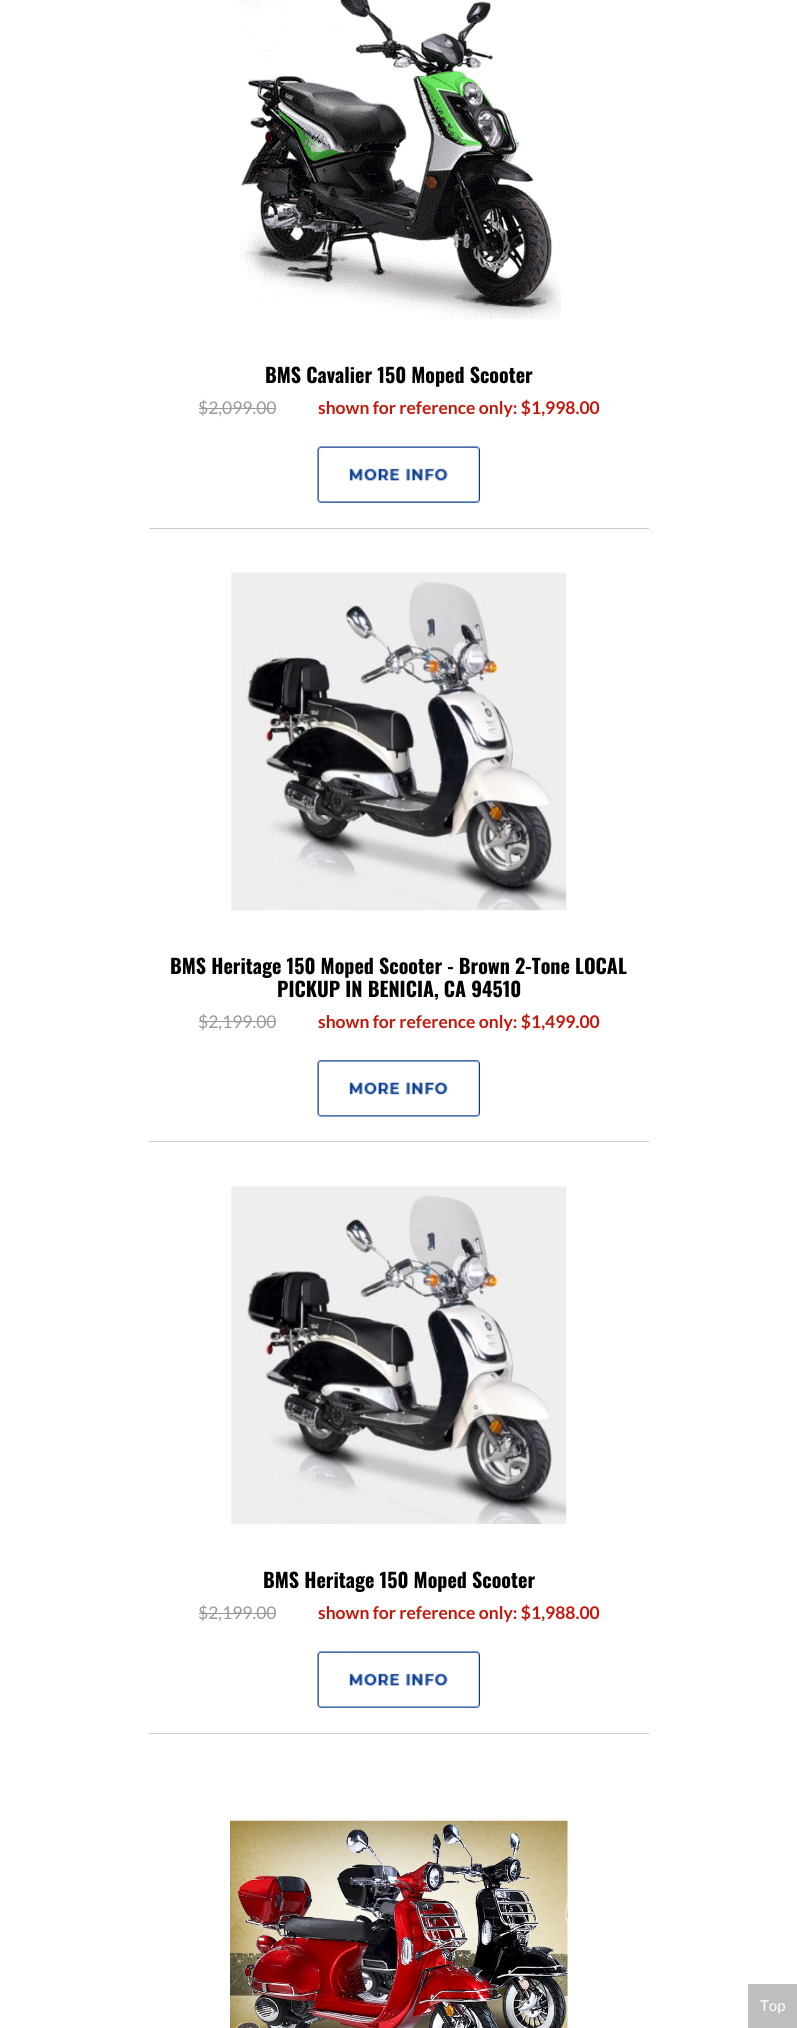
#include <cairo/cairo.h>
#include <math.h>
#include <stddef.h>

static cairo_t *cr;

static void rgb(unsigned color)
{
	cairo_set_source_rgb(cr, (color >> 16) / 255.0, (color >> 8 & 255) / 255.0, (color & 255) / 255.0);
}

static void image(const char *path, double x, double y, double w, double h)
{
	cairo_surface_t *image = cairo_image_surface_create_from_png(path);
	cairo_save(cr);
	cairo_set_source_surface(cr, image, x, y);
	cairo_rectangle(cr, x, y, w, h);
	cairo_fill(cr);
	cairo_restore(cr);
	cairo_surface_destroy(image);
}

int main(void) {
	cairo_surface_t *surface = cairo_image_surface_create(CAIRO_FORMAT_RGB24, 797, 2028);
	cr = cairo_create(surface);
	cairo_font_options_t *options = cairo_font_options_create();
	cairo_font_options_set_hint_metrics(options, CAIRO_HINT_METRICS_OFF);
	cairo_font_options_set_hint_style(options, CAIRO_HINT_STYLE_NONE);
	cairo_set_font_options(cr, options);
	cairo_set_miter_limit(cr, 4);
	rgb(0xffffff);
	cairo_paint(cr);
	image("img/1.png", 238, 0, 324, 319);
	rgb(0x999999);
	cairo_rectangle(cr, 199, 408, 77, 1);
	cairo_fill(cr);
	image("img/2.png", 317, 446, 163, 57);
	rgb(0xcccccc);
	cairo_rectangle(cr, 149, 528, 500, 1);
	cairo_fill(cr);
	image("img/3.png", 231, 572, 336, 339);
	rgb(0x999999);
	cairo_rectangle(cr, 199, 1021, 77, 1);
	cairo_fill(cr);
	image("img/4.png", 317, 1060, 163, 57);
	rgb(0xcccccc);
	cairo_rectangle(cr, 149, 1141, 500, 1);
	cairo_fill(cr);
	image("img/5.png", 231, 1186, 336, 338);
	rgb(0x999999);
	cairo_rectangle(cr, 199, 1613, 77, 1);
	cairo_fill(cr);
	image("img/6.png", 317, 1651, 163, 57);
	rgb(0xcccccc);
	cairo_rectangle(cr, 149, 1733, 500, 1);
	cairo_fill(cr);
	image("img/7.png", 230, 1820, 338, 208);
	rgb(0xbfbfbf);
	cairo_rectangle(cr, 748, 1984, 49, 44);
	cairo_fill(cr);
	cairo_select_font_face(cr, "Oswald", CAIRO_FONT_SLANT_NORMAL, CAIRO_FONT_WEIGHT_BOLD);
	cairo_set_font_size(cr, 20);
	rgb(0x000000);
	cairo_move_to(cr, 265, 383);
	cairo_show_text(cr, "BMS Cavalier 150 Moped Scooter");
	cairo_select_font_face(cr, "Lato", CAIRO_FONT_SLANT_NORMAL, CAIRO_FONT_WEIGHT_NORMAL);
	cairo_set_font_size(cr, 17.5);
	rgb(0x999999);
	cairo_move_to(cr, 198, 414);
	cairo_show_text(cr, "$2,099.00");
	cairo_select_font_face(cr, "Lato", CAIRO_FONT_SLANT_NORMAL, CAIRO_FONT_WEIGHT_BOLD);
	rgb(0xc5180b);
	cairo_move_to(cr, 318, 414);
	cairo_show_text(cr, "shown for reference only: $1,998.00");
	cairo_select_font_face(cr, "Oswald", CAIRO_FONT_SLANT_NORMAL, CAIRO_FONT_WEIGHT_BOLD);
	cairo_set_font_size(cr, 20);
	rgb(0x000000);
	cairo_move_to(cr, 170, 974);
	cairo_show_text(cr, "BMS Heritage 150 Moped Scooter - Brown 2-Tone LOCAL");
	cairo_move_to(cr, 277, 997);
	cairo_show_text(cr, "PICKUP IN BENICIA, CA 94510");
	cairo_select_font_face(cr, "Lato", CAIRO_FONT_SLANT_NORMAL, CAIRO_FONT_WEIGHT_NORMAL);
	cairo_set_font_size(cr, 17.5);
	rgb(0x999999);
	cairo_move_to(cr, 198, 1028);
	cairo_show_text(cr, "$2,199.00");
	cairo_select_font_face(cr, "Lato", CAIRO_FONT_SLANT_NORMAL, CAIRO_FONT_WEIGHT_BOLD);
	rgb(0xc5180b);
	cairo_move_to(cr, 318, 1028);
	cairo_show_text(cr, "shown for reference only: $1,499.00");
	cairo_select_font_face(cr, "Oswald", CAIRO_FONT_SLANT_NORMAL, CAIRO_FONT_WEIGHT_BOLD);
	cairo_set_font_size(cr, 20);
	rgb(0x000000);
	cairo_move_to(cr, 263, 1588);
	cairo_show_text(cr, "BMS Heritage 150 Moped Scooter");
	cairo_select_font_face(cr, "Lato", CAIRO_FONT_SLANT_NORMAL, CAIRO_FONT_WEIGHT_NORMAL);
	cairo_set_font_size(cr, 17.5);
	rgb(0x999999);
	cairo_move_to(cr, 198, 1619);
	cairo_show_text(cr, "$2,199.00");
	cairo_select_font_face(cr, "Lato", CAIRO_FONT_SLANT_NORMAL, CAIRO_FONT_WEIGHT_BOLD);
	rgb(0xc5180b);
	cairo_move_to(cr, 318, 1619);
	cairo_show_text(cr, "shown for reference only: $1,988.00");
	cairo_select_font_face(cr, "Lato", CAIRO_FONT_SLANT_NORMAL, CAIRO_FONT_WEIGHT_NORMAL);
	cairo_set_font_size(cr, 15);
	rgb(0xffffff);
	cairo_move_to(cr, 760, 2011);
	cairo_show_text(cr, "Top");
	cairo_surface_write_to_png(surface, "page.png");
	cairo_font_options_destroy(options);
	cairo_destroy(cr);
	cairo_surface_destroy(surface);
	return 0;
}
